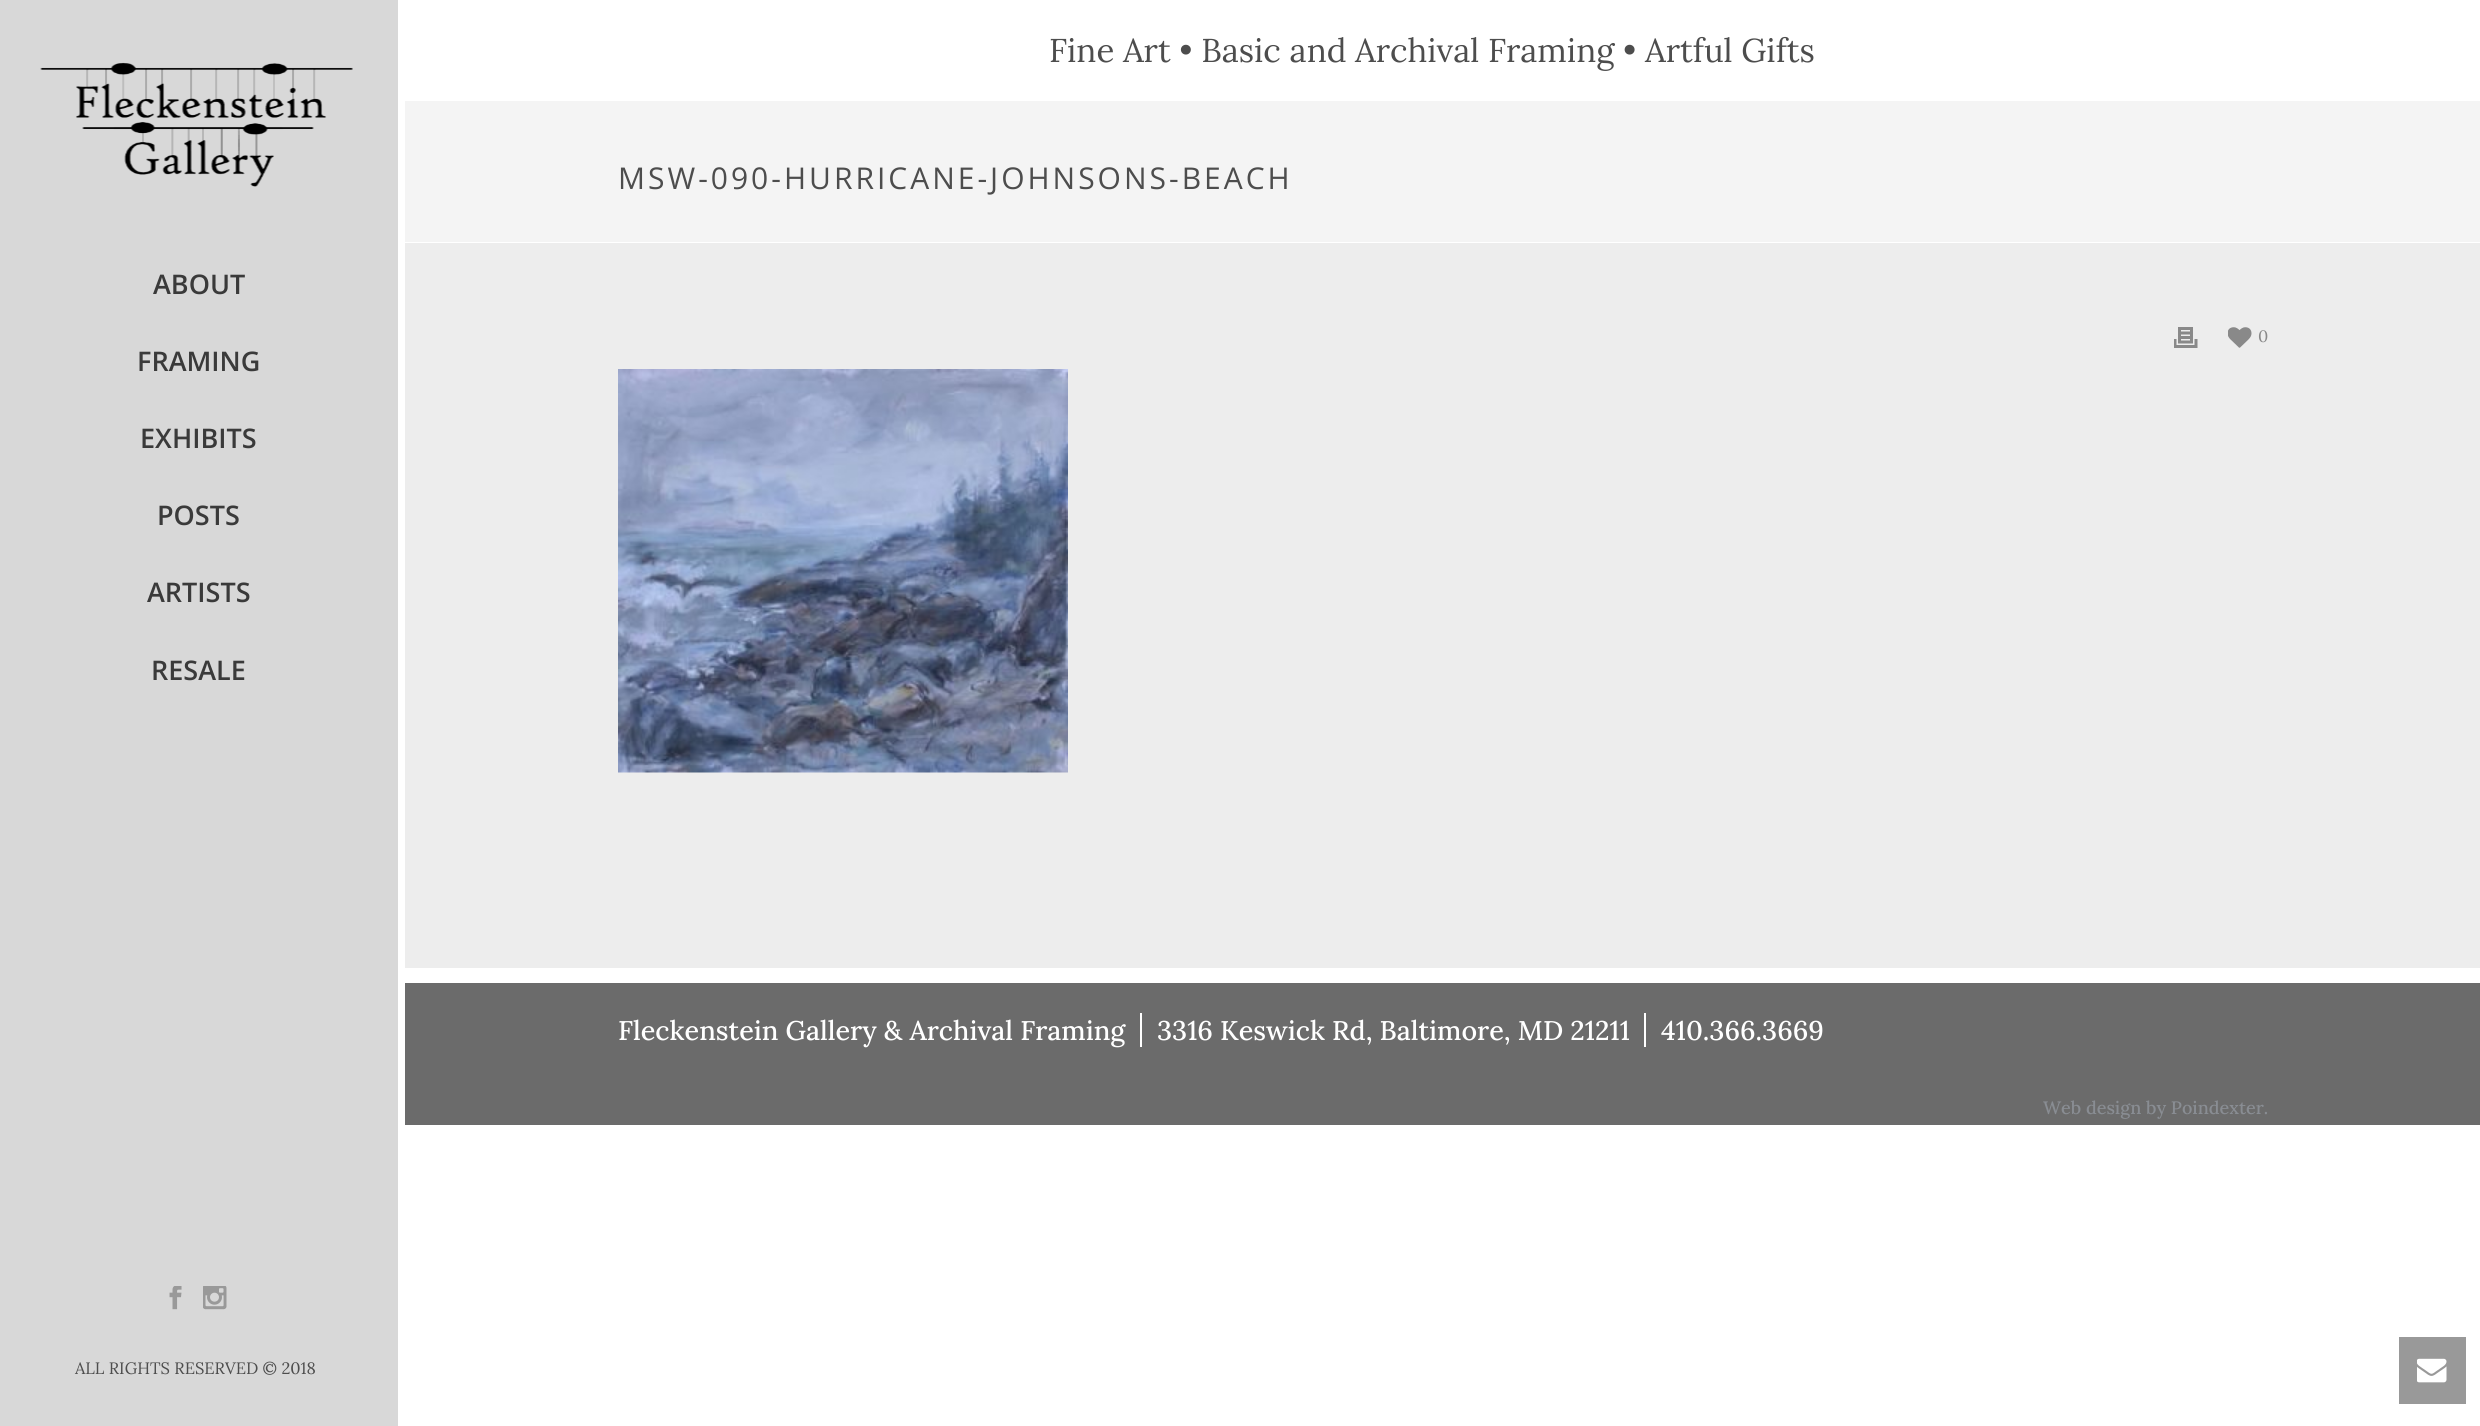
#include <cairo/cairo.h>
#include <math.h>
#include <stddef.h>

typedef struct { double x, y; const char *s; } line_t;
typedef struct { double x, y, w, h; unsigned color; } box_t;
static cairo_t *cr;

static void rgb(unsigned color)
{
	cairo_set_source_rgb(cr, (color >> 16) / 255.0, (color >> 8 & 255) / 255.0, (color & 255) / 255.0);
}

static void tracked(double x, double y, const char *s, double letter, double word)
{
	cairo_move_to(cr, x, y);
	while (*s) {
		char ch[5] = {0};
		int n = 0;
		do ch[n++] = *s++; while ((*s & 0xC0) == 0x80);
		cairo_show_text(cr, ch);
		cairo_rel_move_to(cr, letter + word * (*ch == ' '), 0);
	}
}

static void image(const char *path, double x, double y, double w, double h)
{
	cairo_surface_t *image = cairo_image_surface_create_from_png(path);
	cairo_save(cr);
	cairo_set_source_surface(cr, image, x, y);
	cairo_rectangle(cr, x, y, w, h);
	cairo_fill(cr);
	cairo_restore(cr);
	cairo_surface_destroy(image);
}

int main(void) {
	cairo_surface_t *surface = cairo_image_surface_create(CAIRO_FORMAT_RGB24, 2480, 1426);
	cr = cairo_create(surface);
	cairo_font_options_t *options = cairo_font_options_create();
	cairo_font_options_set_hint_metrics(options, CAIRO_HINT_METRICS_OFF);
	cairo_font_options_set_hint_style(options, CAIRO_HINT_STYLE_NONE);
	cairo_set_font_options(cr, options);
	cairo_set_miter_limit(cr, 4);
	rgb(0xffffff);
	cairo_paint(cr);
	rgb(0xf4f4f4);
	cairo_rectangle(cr, 405, 101, 2075, 141);
	cairo_fill(cr);
	rgb(0xd8d8d8);
	cairo_rectangle(cr, 0, 0, 398, 1426);
	cairo_fill(cr);
	image("img/1.png", 40, 62, 313, 125);
	image("img/2.png", 169, 1286, 13, 24);
	image("img/3.png", 203, 1286, 24, 24);
	rgb(0xededed);
	cairo_rectangle(cr, 405, 243, 2075, 725);
	cairo_fill(cr);
	image("img/4.png", 2174, 327, 24, 21);
	image("img/5.png", 2228, 327, 24, 21);
	image("img/6.png", 618, 369, 450, 404);
	{
		static const box_t items[] = {
			{405, 983, 2075, 142, 0x6b6b6b},
			{1140, 1013, 2, 34, 0xffffff},
			{1644, 1013, 2, 34, 0xffffff},
			{2399, 1337, 67, 67, 0x999999},
		};
		for (size_t i = 0; i < sizeof items / sizeof *items; i++) {
			rgb(items[i].color);
			cairo_rectangle(cr, items[i].x, items[i].y, items[i].w, items[i].h);
			cairo_fill(cr);
		}
	}
	image("img/7.png", 2417, 1358, 30, 25);
	cairo_select_font_face(cr, "Lora", CAIRO_FONT_SLANT_NORMAL, CAIRO_FONT_WEIGHT_NORMAL);
	cairo_set_font_size(cr, 33);
	rgb(0x4d4d4d);
	cairo_move_to(cr, 1049, 62);
	cairo_show_text(cr, "Fine Art • Basic and Archival Framing • Artful Gifts");
	cairo_select_font_face(cr, "Open Sans SemiBold", CAIRO_FONT_SLANT_NORMAL, CAIRO_FONT_WEIGHT_NORMAL);
	cairo_set_font_size(cr, 27);
	rgb(0x3a3a3a);
	{
		static const line_t items[] = {
			{153, 294, "ABOUT"},
			{137, 371, "FRAMING"},
			{140, 448, "EXHIBITS"},
			{157, 525, "POSTS"},
			{147, 602, "ARTISTS"},
			{151, 680, "RESALE"},
		};
		for (size_t i = 0; i < sizeof items / sizeof *items; i++) {
			cairo_move_to(cr, items[i].x, items[i].y);
			cairo_show_text(cr, items[i].s);
		}
	}
	cairo_select_font_face(cr, "Lora", CAIRO_FONT_SLANT_NORMAL, CAIRO_FONT_WEIGHT_NORMAL);
	cairo_set_font_size(cr, 16.5);
	rgb(0x4d4d4d);
	cairo_move_to(cr, 75, 1374);
	cairo_show_text(cr, "ALL RIGHTS RESERVED © 2018");
	cairo_select_font_face(cr, "Open Sans", CAIRO_FONT_SLANT_NORMAL, CAIRO_FONT_WEIGHT_NORMAL);
	cairo_set_font_size(cr, 30);
	tracked(618, 189, "MSW-090-HURRICANE-JOHNSONS-BEACH", 3, 0);
	cairo_select_font_face(cr, "Lora", CAIRO_FONT_SLANT_NORMAL, CAIRO_FONT_WEIGHT_NORMAL);
	cairo_set_font_size(cr, 16.5);
	rgb(0x898989);
	cairo_move_to(cr, 2258, 342);
	cairo_show_text(cr, "0");
	cairo_select_font_face(cr, "Lora Medium", CAIRO_FONT_SLANT_NORMAL, CAIRO_FONT_WEIGHT_NORMAL);
	cairo_set_font_size(cr, 27);
	rgb(0xffffff);
	{
		static const line_t items[] = {
			{618, 1040, "Fleckenstein Gallery & Archival Framing"},
			{1157, 1040, "3316 Keswick Rd, Baltimore, MD 21211"},
			{1661, 1040, "410.366.3669"},
		};
		for (size_t i = 0; i < sizeof items / sizeof *items; i++) {
			cairo_move_to(cr, items[i].x, items[i].y);
			cairo_show_text(cr, items[i].s);
		}
	}
	cairo_set_font_size(cr, 18);
	rgb(0x898d93);
	cairo_move_to(cr, 2043, 1114);
	cairo_show_text(cr, "Web design by Poindexter.");
	cairo_surface_write_to_png(surface, "page.png");
	cairo_font_options_destroy(options);
	cairo_destroy(cr);
	cairo_surface_destroy(surface);
	return 0;
}
